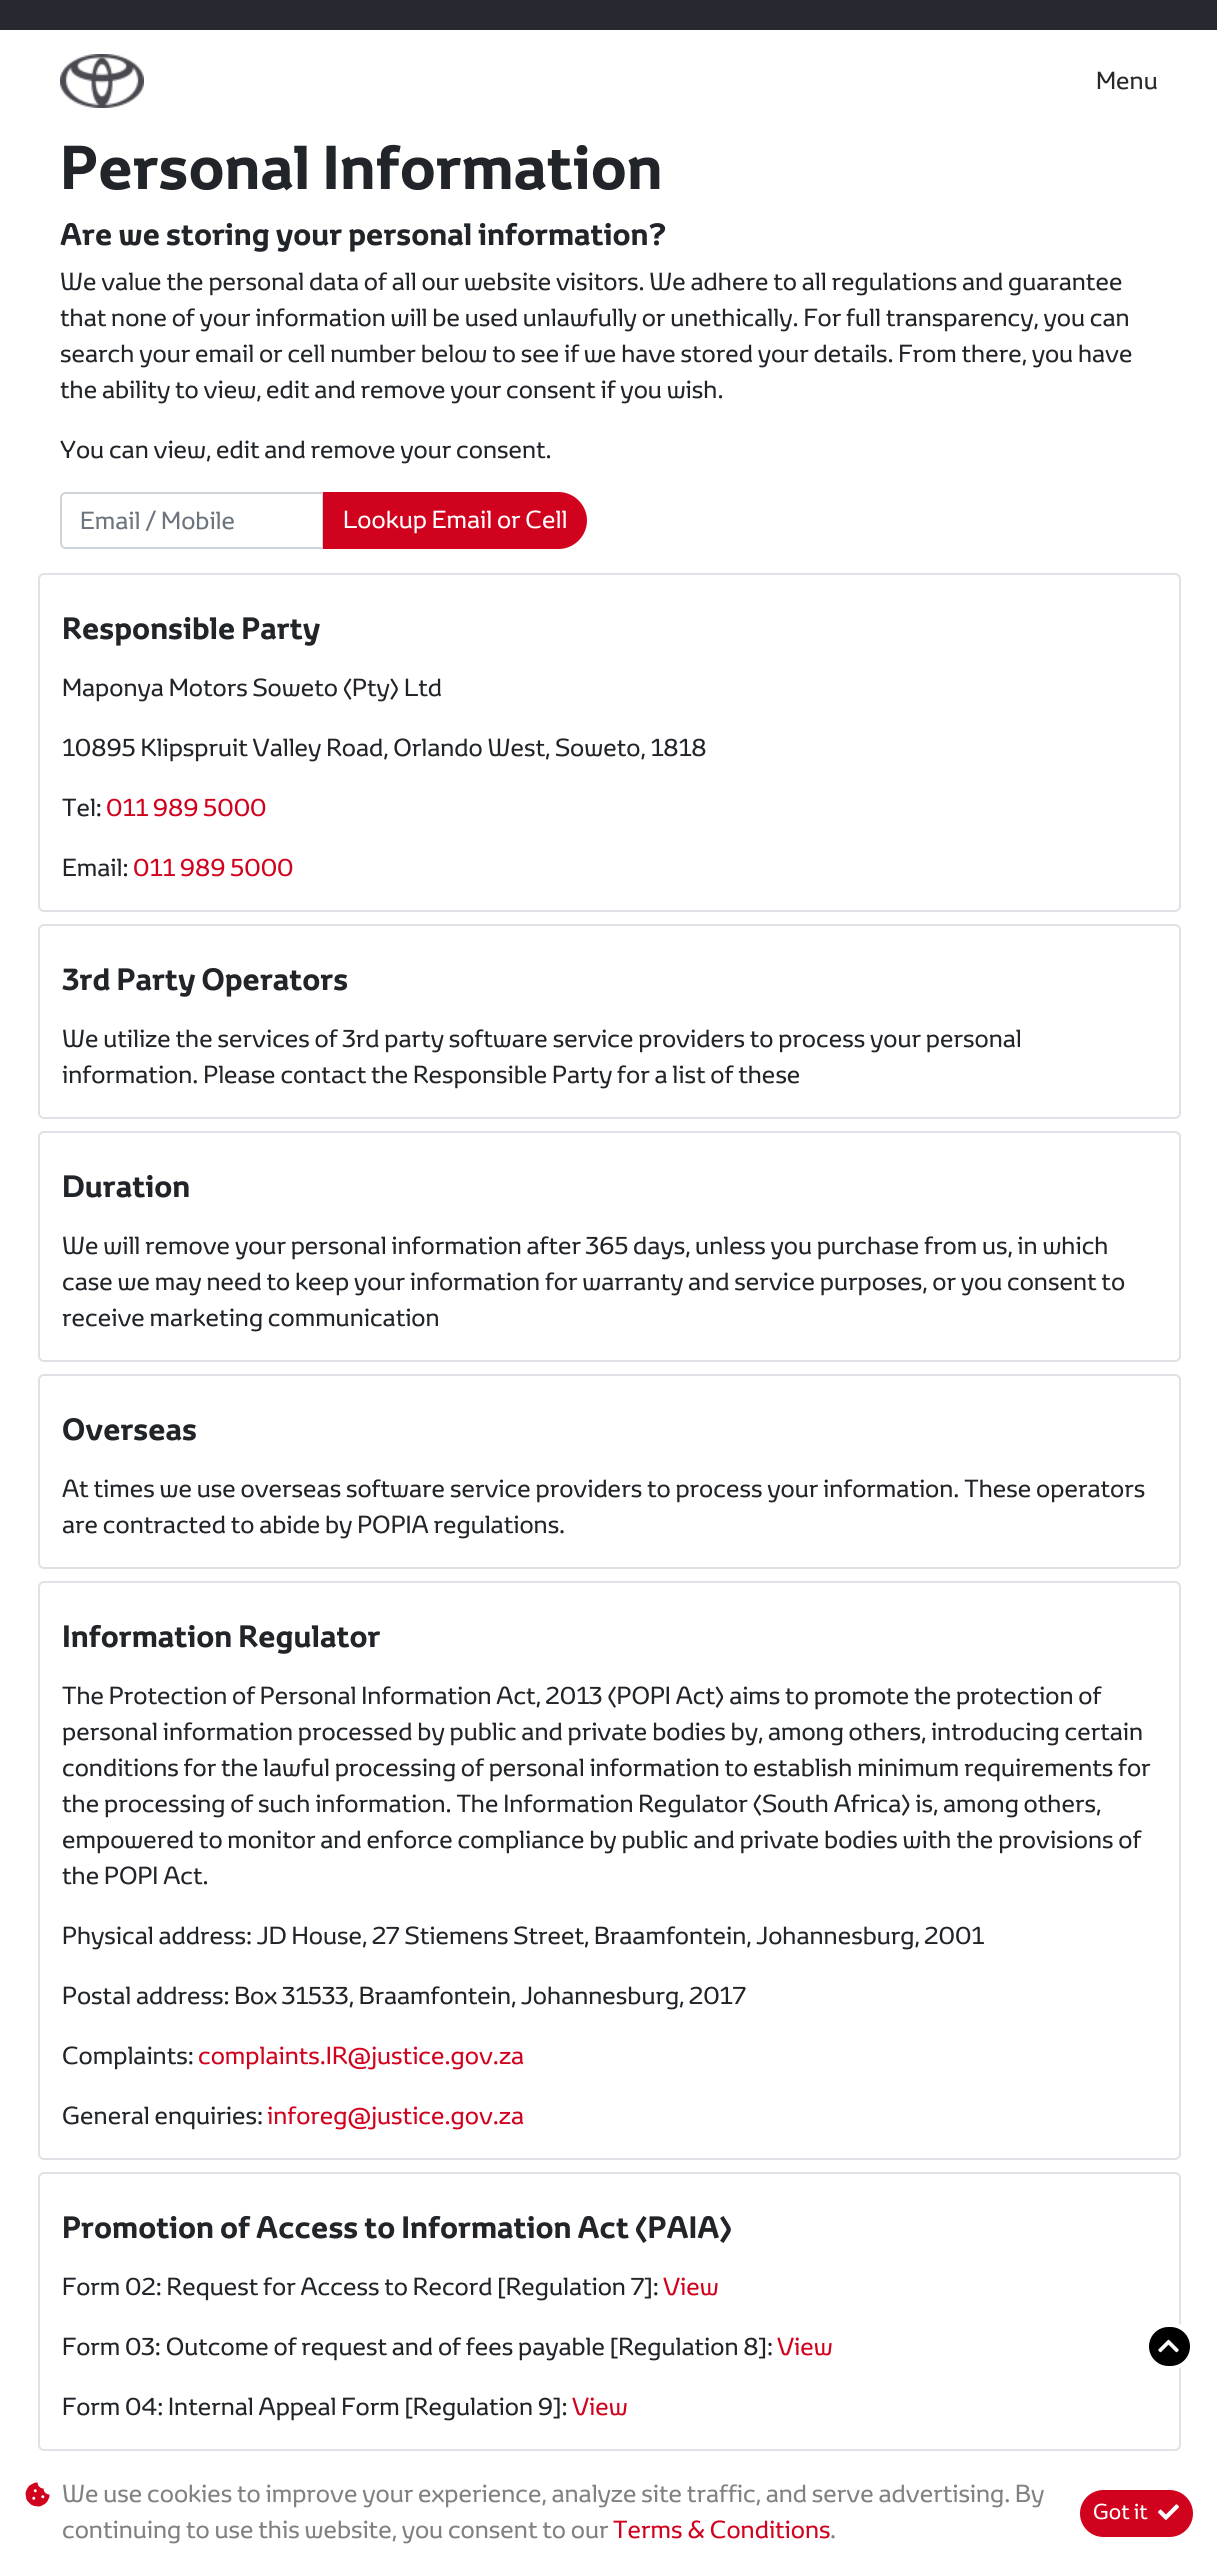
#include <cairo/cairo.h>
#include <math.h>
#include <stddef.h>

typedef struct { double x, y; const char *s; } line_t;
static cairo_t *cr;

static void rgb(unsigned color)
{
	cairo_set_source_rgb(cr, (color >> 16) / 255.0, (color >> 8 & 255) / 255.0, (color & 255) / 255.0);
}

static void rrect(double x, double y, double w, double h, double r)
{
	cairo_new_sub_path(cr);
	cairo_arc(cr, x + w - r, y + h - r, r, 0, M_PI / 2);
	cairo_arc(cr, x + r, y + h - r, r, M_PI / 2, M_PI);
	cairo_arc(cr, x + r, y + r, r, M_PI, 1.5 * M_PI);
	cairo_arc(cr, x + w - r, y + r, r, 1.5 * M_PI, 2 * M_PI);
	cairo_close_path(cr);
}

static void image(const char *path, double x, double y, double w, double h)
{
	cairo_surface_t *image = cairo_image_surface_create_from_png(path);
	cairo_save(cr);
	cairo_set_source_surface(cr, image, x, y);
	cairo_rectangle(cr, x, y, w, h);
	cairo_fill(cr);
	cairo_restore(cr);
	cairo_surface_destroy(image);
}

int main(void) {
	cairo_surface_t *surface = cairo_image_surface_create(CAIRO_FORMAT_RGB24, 1217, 2574);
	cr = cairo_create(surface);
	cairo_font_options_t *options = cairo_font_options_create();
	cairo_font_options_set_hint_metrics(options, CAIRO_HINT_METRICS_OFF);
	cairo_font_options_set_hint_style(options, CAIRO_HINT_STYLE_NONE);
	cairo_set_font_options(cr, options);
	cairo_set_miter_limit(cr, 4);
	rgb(0xffffff);
	cairo_paint(cr);
	rgb(0x282830);
	cairo_rectangle(cr, 0, 0, 1217, 30);
	cairo_fill(cr);
	image("img/1.png", 60, 54, 84, 54);
	cairo_new_path(cr);
	cairo_move_to(cr, 66, 493);
	cairo_line_to(cr, 323, 493);
	cairo_line_to(cr, 323, 548);
	cairo_line_to(cr, 66, 548);
	cairo_curve_to(cr, 63, 548, 61, 546, 61, 543);
	cairo_line_to(cr, 61, 498);
	cairo_curve_to(cr, 61, 495, 63, 493, 66, 493);
	cairo_close_path(cr);
	rgb(0xced4da);
	cairo_stroke(cr);
	rgb(0xd1021e);
	cairo_new_path(cr);
	cairo_move_to(cr, 324, 493);
	cairo_line_to(cr, 558.5, 493);
	cairo_curve_to(cr, 573.5, 493, 586, 505.5, 586, 520.5);
	cairo_curve_to(cr, 586, 535.5, 573.5, 548, 558.5, 548);
	cairo_line_to(cr, 324, 548);
	cairo_close_path(cr);
	cairo_fill_preserve(cr);
	cairo_stroke(cr);
	rrect(39, 574, 1141, 337, 5);
	rgb(0xdee2e6);
	cairo_stroke(cr);
	rrect(39, 925, 1141, 193, 5);
	cairo_stroke(cr);
	rrect(39, 1132, 1141, 229, 5);
	cairo_stroke(cr);
	rrect(39, 1375, 1141, 193, 5);
	cairo_stroke(cr);
	rrect(39, 1582, 1141, 577, 5);
	cairo_stroke(cr);
	rrect(39, 2173, 1141, 277, 5);
	cairo_stroke(cr);
	rgb(0xffffff);
	rrect(1145, 2322, 49, 48, 24);
	cairo_fill(cr);
	rgb(0x000000);
	rrect(1149, 2327, 41, 39, 19.5);
	cairo_fill(cr);
	image("img/2.png", 1158, 2339, 21, 14);
	image("img/3.png", 25, 2482, 25, 25);
	rgb(0xd1021e);
	rrect(1081, 2491, 111, 45, 22.5);
	cairo_fill_preserve(cr);
	cairo_stroke(cr);
	image("img/4.png", 1158, 2504, 21, 16);
	cairo_select_font_face(cr, "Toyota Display", CAIRO_FONT_SLANT_NORMAL, CAIRO_FONT_WEIGHT_NORMAL);
	cairo_set_font_size(cr, 24);
	rgb(0x282829);
	cairo_move_to(cr, 1096, 89);
	cairo_show_text(cr, "Menu");
	cairo_select_font_face(cr, "Toyota Display", CAIRO_FONT_SLANT_NORMAL, CAIRO_FONT_WEIGHT_BOLD);
	cairo_set_font_size(cr, 60);
	rgb(0x212529);
	cairo_move_to(cr, 60, 189);
	cairo_show_text(cr, "Personal Information");
	cairo_set_font_size(cr, 30);
	cairo_move_to(cr, 60, 245);
	cairo_show_text(cr, "Are we storing your personal information?");
	cairo_select_font_face(cr, "Toyota Display", CAIRO_FONT_SLANT_NORMAL, CAIRO_FONT_WEIGHT_NORMAL);
	cairo_set_font_size(cr, 24);
	{
		static const line_t items[] = {
			{60, 290, "We value the personal data of all our website visitors. We adhere to all regulations and guarantee"},
			{60, 326, "that none of your information will be used unlawfully or unethically. For full transparency, you can"},
			{60, 362, "search your email or cell number below to see if we have stored your details. From there, you have"},
			{60, 398, "the ability to view, edit and remove your consent if you wish."},
			{60, 458, "You can view, edit and remove your consent."},
		};
		for (size_t i = 0; i < sizeof items / sizeof *items; i++) {
			cairo_move_to(cr, items[i].x, items[i].y);
			cairo_show_text(cr, items[i].s);
		}
	}
	rgb(0x6c757d);
	cairo_move_to(cr, 80, 529);
	cairo_show_text(cr, "Email / Mobile");
	rgb(0xffffff);
	cairo_move_to(cr, 343, 528);
	cairo_show_text(cr, "Lookup Email or Cell");
	cairo_select_font_face(cr, "Toyota Display", CAIRO_FONT_SLANT_NORMAL, CAIRO_FONT_WEIGHT_BOLD);
	cairo_set_font_size(cr, 30);
	rgb(0x212529);
	cairo_move_to(cr, 62, 639);
	cairo_show_text(cr, "Responsible Party");
	cairo_select_font_face(cr, "Toyota Display", CAIRO_FONT_SLANT_NORMAL, CAIRO_FONT_WEIGHT_NORMAL);
	cairo_set_font_size(cr, 24);
	{
		static const line_t items[] = {
			{62, 696, "Maponya Motors Soweto (Pty) Ltd"},
			{62, 756, "10895 Klipspruit Valley Road, Orlando West, Soweto, 1818"},
			{62, 816, "Tel:"},
		};
		for (size_t i = 0; i < sizeof items / sizeof *items; i++) {
			cairo_move_to(cr, items[i].x, items[i].y);
			cairo_show_text(cr, items[i].s);
		}
	}
	rgb(0xd1021e);
	cairo_move_to(cr, 106, 816);
	cairo_show_text(cr, "011 989 5000");
	rgb(0x212529);
	cairo_move_to(cr, 62, 876);
	cairo_show_text(cr, "Email:");
	rgb(0xd1021e);
	cairo_move_to(cr, 133, 876);
	cairo_show_text(cr, "011 989 5000");
	cairo_select_font_face(cr, "Toyota Display", CAIRO_FONT_SLANT_NORMAL, CAIRO_FONT_WEIGHT_BOLD);
	cairo_set_font_size(cr, 30);
	rgb(0x212529);
	cairo_move_to(cr, 62, 990);
	cairo_show_text(cr, "3rd Party Operators");
	cairo_select_font_face(cr, "Toyota Display", CAIRO_FONT_SLANT_NORMAL, CAIRO_FONT_WEIGHT_NORMAL);
	cairo_set_font_size(cr, 24);
	cairo_move_to(cr, 62, 1047);
	cairo_show_text(cr, "We utilize the services of 3rd party software service providers to process your personal");
	cairo_move_to(cr, 62, 1083);
	cairo_show_text(cr, "information. Please contact the Responsible Party for a list of these");
	cairo_select_font_face(cr, "Toyota Display", CAIRO_FONT_SLANT_NORMAL, CAIRO_FONT_WEIGHT_BOLD);
	cairo_set_font_size(cr, 30);
	cairo_move_to(cr, 62, 1197);
	cairo_show_text(cr, "Duration");
	cairo_select_font_face(cr, "Toyota Display", CAIRO_FONT_SLANT_NORMAL, CAIRO_FONT_WEIGHT_NORMAL);
	cairo_set_font_size(cr, 24);
	{
		static const line_t items[] = {
			{62, 1254, "We will remove your personal information after 365 days, unless you purchase from us, in which"},
			{62, 1290, "case we may need to keep your information for warranty and service purposes, or you consent to"},
			{62, 1326, "receive marketing communication"},
		};
		for (size_t i = 0; i < sizeof items / sizeof *items; i++) {
			cairo_move_to(cr, items[i].x, items[i].y);
			cairo_show_text(cr, items[i].s);
		}
	}
	cairo_select_font_face(cr, "Toyota Display", CAIRO_FONT_SLANT_NORMAL, CAIRO_FONT_WEIGHT_BOLD);
	cairo_set_font_size(cr, 30);
	cairo_move_to(cr, 62, 1440);
	cairo_show_text(cr, "Overseas");
	cairo_select_font_face(cr, "Toyota Display", CAIRO_FONT_SLANT_NORMAL, CAIRO_FONT_WEIGHT_NORMAL);
	cairo_set_font_size(cr, 24);
	cairo_move_to(cr, 62, 1497);
	cairo_show_text(cr, "At times we use overseas software service providers to process your information. These operators");
	cairo_move_to(cr, 62, 1533);
	cairo_show_text(cr, "are contracted to abide by POPIA regulations.");
	cairo_select_font_face(cr, "Toyota Display", CAIRO_FONT_SLANT_NORMAL, CAIRO_FONT_WEIGHT_BOLD);
	cairo_set_font_size(cr, 30);
	cairo_move_to(cr, 62, 1647);
	cairo_show_text(cr, "Information Regulator");
	cairo_select_font_face(cr, "Toyota Display", CAIRO_FONT_SLANT_NORMAL, CAIRO_FONT_WEIGHT_NORMAL);
	cairo_set_font_size(cr, 24);
	{
		static const line_t items[] = {
			{62, 1704, "The Protection of Personal Information Act, 2013 (POPI Act) aims to promote the protection of"},
			{62, 1740, "personal information processed by public and private bodies by, among others, introducing certain"},
			{62, 1776, "conditions for the lawful processing of personal information to establish minimum requirements for"},
			{62, 1812, "the processing of such information. The Information Regulator (South Africa) is, among others,"},
			{62, 1848, "empowered to monitor and enforce compliance by public and private bodies with the provisions of"},
			{62, 1884, "the POPI Act."},
			{62, 1944, "Physical address: JD House, 27 Stiemens Street, Braamfontein, Johannesburg, 2001"},
			{62, 2004, "Postal address: Box 31533, Braamfontein, Johannesburg, 2017"},
			{62, 2064, "Complaints:"},
		};
		for (size_t i = 0; i < sizeof items / sizeof *items; i++) {
			cairo_move_to(cr, items[i].x, items[i].y);
			cairo_show_text(cr, items[i].s);
		}
	}
	rgb(0xd1021e);
	cairo_move_to(cr, 198, 2064);
	cairo_show_text(cr, "complaints.IR@justice.gov.za");
	rgb(0x212529);
	cairo_move_to(cr, 62, 2124);
	cairo_show_text(cr, "General enquiries:");
	rgb(0xd1021e);
	cairo_move_to(cr, 267, 2124);
	cairo_show_text(cr, "inforeg@justice.gov.za");
	cairo_select_font_face(cr, "Toyota Display", CAIRO_FONT_SLANT_NORMAL, CAIRO_FONT_WEIGHT_BOLD);
	cairo_set_font_size(cr, 30);
	rgb(0x212529);
	cairo_move_to(cr, 62, 2238);
	cairo_show_text(cr, "Promotion of Access to Information Act (PAIA)");
	cairo_select_font_face(cr, "Toyota Display", CAIRO_FONT_SLANT_NORMAL, CAIRO_FONT_WEIGHT_NORMAL);
	cairo_set_font_size(cr, 24);
	cairo_move_to(cr, 62, 2295);
	cairo_show_text(cr, "Form 02: Request for Access to Record [Regulation 7]:");
	rgb(0xd1021e);
	cairo_move_to(cr, 663, 2295);
	cairo_show_text(cr, "View");
	rgb(0x212529);
	cairo_move_to(cr, 62, 2355);
	cairo_show_text(cr, "Form 03: Outcome of request and of fees payable [Regulation 8]:");
	rgb(0xd1021e);
	cairo_move_to(cr, 777, 2355);
	cairo_show_text(cr, "View");
	rgb(0x212529);
	cairo_move_to(cr, 62, 2415);
	cairo_show_text(cr, "Form 04: Internal Appeal Form [Regulation 9]:");
	rgb(0xd1021e);
	cairo_move_to(cr, 572, 2415);
	cairo_show_text(cr, "View");
	rgb(0x818182);
	cairo_move_to(cr, 62, 2502);
	cairo_show_text(cr, "We use cookies to improve your experience, analyze site traffic, and serve advertising. By");
	cairo_move_to(cr, 62, 2538);
	cairo_show_text(cr, "continuing to use this website, you consent to our");
	rgb(0xd1021e);
	cairo_move_to(cr, 613, 2538);
	cairo_show_text(cr, "Terms & Conditions");
	rgb(0x818182);
	cairo_move_to(cr, 830, 2538);
	cairo_show_text(cr, ".");
	cairo_set_font_size(cr, 21);
	rgb(0xffffff);
	cairo_move_to(cr, 1093, 2519);
	cairo_show_text(cr, "Got it");
	cairo_surface_write_to_png(surface, "page.png");
	cairo_font_options_destroy(options);
	cairo_destroy(cr);
	cairo_surface_destroy(surface);
	return 0;
}
